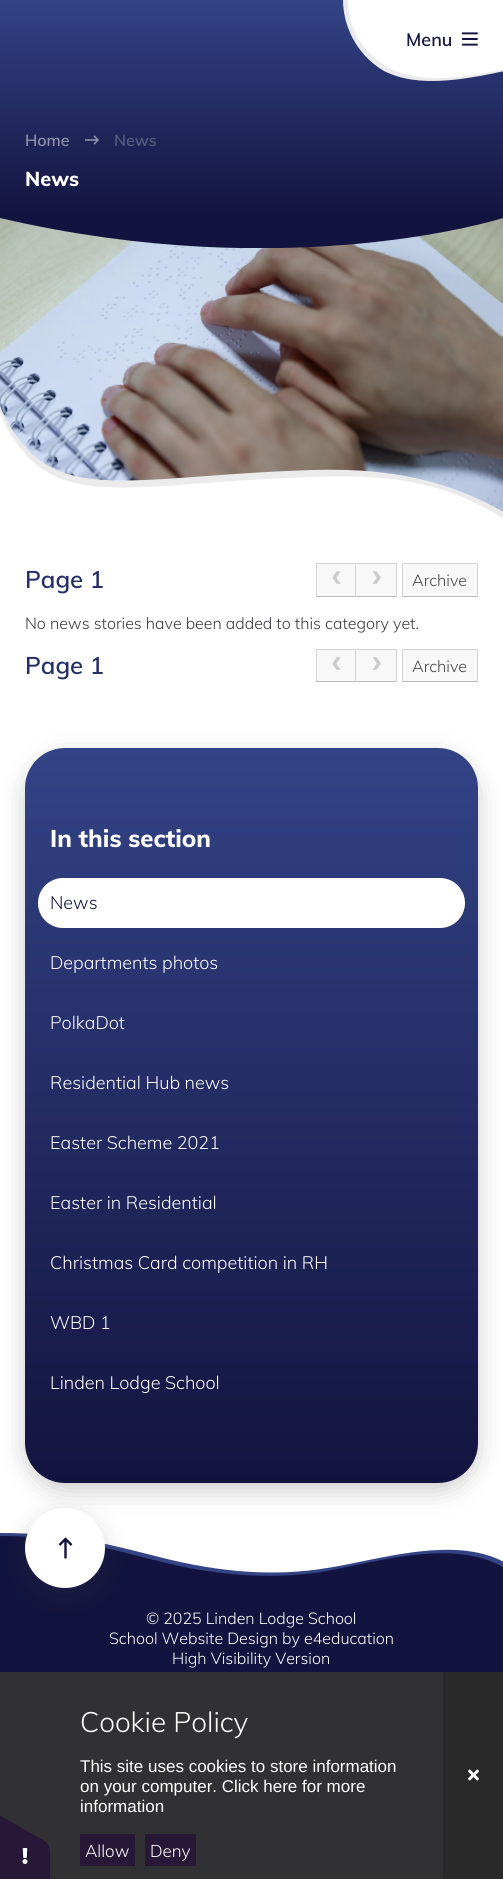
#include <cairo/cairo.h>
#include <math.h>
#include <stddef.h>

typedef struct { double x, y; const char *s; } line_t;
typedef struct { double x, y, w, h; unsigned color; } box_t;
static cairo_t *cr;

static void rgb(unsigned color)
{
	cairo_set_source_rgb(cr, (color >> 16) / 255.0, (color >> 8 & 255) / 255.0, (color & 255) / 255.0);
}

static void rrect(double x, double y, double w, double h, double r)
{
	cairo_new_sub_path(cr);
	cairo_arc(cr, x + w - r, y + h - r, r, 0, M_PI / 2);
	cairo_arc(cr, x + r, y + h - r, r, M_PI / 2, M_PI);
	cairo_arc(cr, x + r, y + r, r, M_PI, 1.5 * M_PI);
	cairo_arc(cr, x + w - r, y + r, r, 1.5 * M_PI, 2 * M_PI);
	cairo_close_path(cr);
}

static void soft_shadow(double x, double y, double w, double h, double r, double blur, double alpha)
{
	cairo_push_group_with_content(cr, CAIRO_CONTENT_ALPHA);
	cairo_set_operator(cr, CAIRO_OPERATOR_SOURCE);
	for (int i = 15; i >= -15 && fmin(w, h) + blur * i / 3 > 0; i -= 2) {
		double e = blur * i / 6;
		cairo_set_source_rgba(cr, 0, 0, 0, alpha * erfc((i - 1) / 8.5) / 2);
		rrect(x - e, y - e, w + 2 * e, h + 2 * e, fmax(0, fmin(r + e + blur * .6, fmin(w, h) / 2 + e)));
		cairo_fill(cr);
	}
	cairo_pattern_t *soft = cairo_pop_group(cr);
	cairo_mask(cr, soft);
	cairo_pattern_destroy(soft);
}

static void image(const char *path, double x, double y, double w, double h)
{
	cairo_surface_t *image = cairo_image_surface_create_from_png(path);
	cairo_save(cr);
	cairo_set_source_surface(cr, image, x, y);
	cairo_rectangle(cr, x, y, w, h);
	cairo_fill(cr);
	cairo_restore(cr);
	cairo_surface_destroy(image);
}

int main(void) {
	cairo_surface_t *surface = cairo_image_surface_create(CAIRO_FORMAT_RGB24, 503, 1879);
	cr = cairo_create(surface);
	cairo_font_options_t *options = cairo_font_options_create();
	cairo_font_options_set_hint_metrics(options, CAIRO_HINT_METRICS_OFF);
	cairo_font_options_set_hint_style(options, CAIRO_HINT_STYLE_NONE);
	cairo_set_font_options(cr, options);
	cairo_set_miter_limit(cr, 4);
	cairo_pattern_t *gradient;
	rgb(0xffffff);
	cairo_paint(cr);
	gradient = cairo_pattern_create_linear(0, 218, 0, 0);
	cairo_pattern_add_color_stop_rgba(gradient, 0, 0.075, 0.075, 0.247, 1);
	cairo_pattern_add_color_stop_rgba(gradient, 1, 0.2, 0.263, 0.525, 1);
	cairo_set_source(cr, gradient);
	cairo_pattern_destroy(gradient);
	cairo_new_path(cr);
	cairo_move_to(cr, 0, 0);
	cairo_line_to(cr, 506, 0);
	cairo_curve_to(cr, 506, 0, 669, 92, 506, 218);
	cairo_line_to(cr, 0, 218);
	cairo_close_path(cr);
	cairo_fill(cr);
	rgb(0xebebeb);
	cairo_new_path(cr);
	cairo_move_to(cr, 343, 0);
	cairo_curve_to(cr, 343, 24, 355, 54, 384, 71);
	cairo_curve_to(cr, 427, 93, 490, 73, 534, 65);
	cairo_curve_to(cr, 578, 58, 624, 63, 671, 74);
	cairo_curve_to(cr, 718, 86, 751, 95, 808, 95);
	cairo_line_to(cr, 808, 0);
	cairo_close_path(cr);
	cairo_fill(cr);
	rgb(0xffffff);
	cairo_new_path(cr);
	cairo_move_to(cr, 348, 0);
	cairo_curve_to(cr, 348, 24, 359, 51, 389, 68);
	cairo_curve_to(cr, 432, 90, 494, 70, 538, 63);
	cairo_curve_to(cr, 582, 55, 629, 60, 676, 72);
	cairo_curve_to(cr, 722, 84, 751, 92, 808, 92);
	cairo_line_to(cr, 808, 0);
	cairo_close_path(cr);
	cairo_fill(cr);
	image("img/1.png", 462, 32, 16, 14);
	image("img/2.png", 85, 135, 14, 10);
	image("img/3.png", 0, 218, 503, 294);
	cairo_save(cr);
	cairo_rectangle(cr, 0, 218, 503, 30);
	cairo_clip(cr);
	rgb(0x13133f);
	cairo_new_path(cr);
	cairo_move_to(cr, 503, 218);
	cairo_curve_to(cr, 503, 218, 291, 286, 0, 218);
	cairo_fill(cr);
	cairo_restore(cr);
	rgb(0xebebeb);
	cairo_new_path(cr);
	cairo_move_to(cr, 0, 518);
	cairo_line_to(cr, 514, 518);
	cairo_curve_to(cr, 462, 487, 406, 467, 312, 470);
	cairo_curve_to(cr, 152, 475, 75, 500, 27, 449);
	cairo_curve_to(cr, -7, 412, -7, 375, -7, 369);
	cairo_close_path(cr);
	cairo_fill(cr);
	rgb(0xffffff);
	cairo_new_path(cr);
	cairo_move_to(cr, 0, 518);
	cairo_line_to(cr, 503, 518);
	cairo_curve_to(cr, 450, 487, 406, 473, 312, 477);
	cairo_curve_to(cr, 152, 482, 75, 507, 27, 456);
	cairo_curve_to(cr, -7, 419, -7, 382, -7, 375);
	cairo_close_path(cr);
	cairo_fill(cr);
	rgb(0xf8f8f8);
	cairo_rectangle(cr, 316, 563, 81, 34);
	cairo_fill(cr);
	rgb(0xd3d3d3);
	cairo_new_path(cr);
	cairo_move_to(cr, 316, 563);
	cairo_line_to(cr, 356, 563);
	cairo_line_to(cr, 355, 564);
	cairo_line_to(cr, 317, 564);
	cairo_close_path(cr);
	cairo_fill(cr);
	cairo_set_source_rgba(cr, 0, 0, 0, 0.15);
	cairo_new_path(cr);
	cairo_move_to(cr, 356, 563);
	cairo_line_to(cr, 356, 597);
	cairo_line_to(cr, 355, 596);
	cairo_line_to(cr, 355, 564);
	cairo_close_path(cr);
	cairo_fill(cr);
	cairo_set_source_rgba(cr, 0, 0, 0, 0.25);
	cairo_new_path(cr);
	cairo_move_to(cr, 356, 597);
	cairo_line_to(cr, 316, 597);
	cairo_line_to(cr, 317, 596);
	cairo_line_to(cr, 355, 596);
	cairo_close_path(cr);
	cairo_fill(cr);
	cairo_set_source_rgba(cr, 0, 0, 0, 0.15);
	cairo_new_path(cr);
	cairo_move_to(cr, 316, 597);
	cairo_line_to(cr, 316, 563);
	cairo_line_to(cr, 317, 564);
	cairo_line_to(cr, 317, 596);
	cairo_close_path(cr);
	cairo_fill(cr);
	rgb(0xd3d3d3);
	cairo_new_path(cr);
	cairo_move_to(cr, 356, 563);
	cairo_line_to(cr, 397, 563);
	cairo_line_to(cr, 396, 564);
	cairo_line_to(cr, 357, 564);
	cairo_close_path(cr);
	cairo_fill(cr);
	cairo_set_source_rgba(cr, 0, 0, 0, 0.15);
	cairo_new_path(cr);
	cairo_move_to(cr, 397, 563);
	cairo_line_to(cr, 397, 597);
	cairo_line_to(cr, 396, 596);
	cairo_line_to(cr, 396, 564);
	cairo_close_path(cr);
	cairo_fill(cr);
	cairo_set_source_rgba(cr, 0, 0, 0, 0.25);
	cairo_new_path(cr);
	cairo_move_to(cr, 397, 597);
	cairo_line_to(cr, 356, 597);
	cairo_line_to(cr, 357, 596);
	cairo_line_to(cr, 396, 596);
	cairo_close_path(cr);
	cairo_fill(cr);
	cairo_set_source_rgba(cr, 1, 1, 1, 0.15);
	cairo_new_path(cr);
	cairo_move_to(cr, 356, 597);
	cairo_line_to(cr, 356, 563);
	cairo_line_to(cr, 357, 564);
	cairo_line_to(cr, 357, 596);
	cairo_close_path(cr);
	cairo_fill(cr);
	rgb(0xf8f8f8);
	cairo_rectangle(cr, 402, 563, 76, 34);
	cairo_fill(cr);
	rgb(0xd3d3d3);
	cairo_new_path(cr);
	cairo_move_to(cr, 402, 563);
	cairo_line_to(cr, 478, 563);
	cairo_line_to(cr, 477, 564);
	cairo_line_to(cr, 403, 564);
	cairo_close_path(cr);
	cairo_fill(cr);
	cairo_set_source_rgba(cr, 0, 0, 0, 0.15);
	cairo_new_path(cr);
	cairo_move_to(cr, 478, 563);
	cairo_line_to(cr, 478, 597);
	cairo_line_to(cr, 477, 596);
	cairo_line_to(cr, 477, 564);
	cairo_close_path(cr);
	cairo_fill(cr);
	cairo_set_source_rgba(cr, 0, 0, 0, 0.25);
	cairo_new_path(cr);
	cairo_move_to(cr, 478, 597);
	cairo_line_to(cr, 402, 597);
	cairo_line_to(cr, 403, 596);
	cairo_line_to(cr, 477, 596);
	cairo_close_path(cr);
	cairo_fill(cr);
	cairo_set_source_rgba(cr, 0, 0, 0, 0.15);
	cairo_new_path(cr);
	cairo_move_to(cr, 402, 597);
	cairo_line_to(cr, 402, 563);
	cairo_line_to(cr, 403, 564);
	cairo_line_to(cr, 403, 596);
	cairo_close_path(cr);
	cairo_fill(cr);
	rgb(0xf8f8f8);
	cairo_rectangle(cr, 316, 649, 81, 33);
	cairo_fill(cr);
	rgb(0xd3d3d3);
	cairo_new_path(cr);
	cairo_move_to(cr, 316, 649);
	cairo_line_to(cr, 356, 649);
	cairo_line_to(cr, 355, 650);
	cairo_line_to(cr, 317, 650);
	cairo_close_path(cr);
	cairo_fill(cr);
	cairo_set_source_rgba(cr, 0, 0, 0, 0.15);
	cairo_new_path(cr);
	cairo_move_to(cr, 356, 649);
	cairo_line_to(cr, 356, 682);
	cairo_line_to(cr, 355, 681);
	cairo_line_to(cr, 355, 650);
	cairo_close_path(cr);
	cairo_fill(cr);
	cairo_set_source_rgba(cr, 0, 0, 0, 0.25);
	cairo_new_path(cr);
	cairo_move_to(cr, 356, 682);
	cairo_line_to(cr, 316, 682);
	cairo_line_to(cr, 317, 681);
	cairo_line_to(cr, 355, 681);
	cairo_close_path(cr);
	cairo_fill(cr);
	cairo_set_source_rgba(cr, 0, 0, 0, 0.15);
	cairo_new_path(cr);
	cairo_move_to(cr, 316, 682);
	cairo_line_to(cr, 316, 649);
	cairo_line_to(cr, 317, 650);
	cairo_line_to(cr, 317, 681);
	cairo_close_path(cr);
	cairo_fill(cr);
	rgb(0xd3d3d3);
	cairo_new_path(cr);
	cairo_move_to(cr, 356, 649);
	cairo_line_to(cr, 397, 649);
	cairo_line_to(cr, 396, 650);
	cairo_line_to(cr, 357, 650);
	cairo_close_path(cr);
	cairo_fill(cr);
	cairo_set_source_rgba(cr, 0, 0, 0, 0.15);
	cairo_new_path(cr);
	cairo_move_to(cr, 397, 649);
	cairo_line_to(cr, 397, 682);
	cairo_line_to(cr, 396, 681);
	cairo_line_to(cr, 396, 650);
	cairo_close_path(cr);
	cairo_fill(cr);
	cairo_set_source_rgba(cr, 0, 0, 0, 0.25);
	cairo_new_path(cr);
	cairo_move_to(cr, 397, 682);
	cairo_line_to(cr, 356, 682);
	cairo_line_to(cr, 357, 681);
	cairo_line_to(cr, 396, 681);
	cairo_close_path(cr);
	cairo_fill(cr);
	cairo_set_source_rgba(cr, 1, 1, 1, 0.15);
	cairo_new_path(cr);
	cairo_move_to(cr, 356, 682);
	cairo_line_to(cr, 356, 649);
	cairo_line_to(cr, 357, 650);
	cairo_line_to(cr, 357, 681);
	cairo_close_path(cr);
	cairo_fill(cr);
	rgb(0xf8f8f8);
	cairo_rectangle(cr, 402, 649, 76, 33);
	cairo_fill(cr);
	rgb(0xd3d3d3);
	cairo_new_path(cr);
	cairo_move_to(cr, 402, 649);
	cairo_line_to(cr, 478, 649);
	cairo_line_to(cr, 477, 650);
	cairo_line_to(cr, 403, 650);
	cairo_close_path(cr);
	cairo_fill(cr);
	cairo_set_source_rgba(cr, 0, 0, 0, 0.15);
	cairo_new_path(cr);
	cairo_move_to(cr, 478, 649);
	cairo_line_to(cr, 478, 682);
	cairo_line_to(cr, 477, 681);
	cairo_line_to(cr, 477, 650);
	cairo_close_path(cr);
	cairo_fill(cr);
	cairo_set_source_rgba(cr, 0, 0, 0, 0.25);
	cairo_new_path(cr);
	cairo_move_to(cr, 478, 682);
	cairo_line_to(cr, 402, 682);
	cairo_line_to(cr, 403, 681);
	cairo_line_to(cr, 477, 681);
	cairo_close_path(cr);
	cairo_fill(cr);
	cairo_set_source_rgba(cr, 0, 0, 0, 0.15);
	cairo_new_path(cr);
	cairo_move_to(cr, 402, 682);
	cairo_line_to(cr, 402, 649);
	cairo_line_to(cr, 403, 650);
	cairo_line_to(cr, 403, 681);
	cairo_close_path(cr);
	cairo_fill(cr);
	rgb(0x000000);
	soft_shadow(25, 756, 453, 735, 40, 12, 0.2);
	gradient = cairo_pattern_create_linear(252, 1483, 252, 748);
	cairo_pattern_add_color_stop_rgba(gradient, 0, 0.075, 0.075, 0.247, 1);
	cairo_pattern_add_color_stop_rgba(gradient, 1, 0.2, 0.263, 0.525, 1);
	cairo_set_source(cr, gradient);
	cairo_pattern_destroy(gradient);
	rrect(25, 748, 453, 735, 40);
	cairo_fill(cr);
	rgb(0xffffff);
	rrect(38, 878, 427, 50, 25);
	cairo_fill(cr);
	rgb(0x334386);
	cairo_new_path(cr);
	cairo_move_to(cr, 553, 1646);
	cairo_curve_to(cr, 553, 1617, 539, 1582, 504, 1562);
	cairo_curve_to(cr, 453, 1535, 379, 1560, 327, 1568);
	cairo_curve_to(cr, 274, 1577, 219, 1572, 163, 1558);
	cairo_curve_to(cr, 108, 1544, 68, 1533, 0, 1533);
	cairo_line_to(cr, 0, 1646);
	cairo_close_path(cr);
	cairo_fill(cr);
	rgb(0x13133f);
	cairo_new_path(cr);
	cairo_move_to(cr, 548, 1646);
	cairo_curve_to(cr, 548, 1617, 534, 1586, 499, 1565);
	cairo_curve_to(cr, 448, 1539, 374, 1563, 321, 1572);
	cairo_curve_to(cr, 269, 1580, 213, 1575, 158, 1561);
	cairo_curve_to(cr, 102, 1547, 68, 1536, 0, 1536);
	cairo_line_to(cr, 0, 1646);
	cairo_close_path(cr);
	cairo_fill(cr);
	rgb(0x373f3c);
	soft_shadow(25, 1516, 80, 80, 40, 12, 0.2);
	rgb(0xffffff);
	cairo_arc(cr, 65, 1548, 40, 0, 2 * M_PI);
	cairo_fill(cr);
	image("img/4.png", 58, 1537, 15, 22);
	rgb(0x13133f);
	cairo_rectangle(cr, 0, 1646, 503, 26);
	cairo_fill(cr);
	rgb(0x313134);
	cairo_rectangle(cr, 0, 1672, 443, 207);
	cairo_fill(cr);
	rgb(0x281838);
	cairo_new_path(cr);
	cairo_move_to(cr, 50, 1852);
	cairo_line_to(cr, 50, 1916);
	cairo_curve_to(cr, 50, 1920, 48, 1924, 46, 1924);
	cairo_line_to(cr, -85, 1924);
	cairo_curve_to(cr, -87, 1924, -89, 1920, -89, 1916);
	cairo_line_to(cr, -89, 1852);
	cairo_curve_to(cr, -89, 1847, -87, 1844, -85, 1844);
	cairo_line_to(cr, 46, 1844);
	cairo_curve_to(cr, 48, 1844, 50, 1847, 50, 1852);
	cairo_close_path(cr);
	cairo_fill(cr);
	cairo_new_path(cr);
	cairo_move_to(cr, -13, 1808);
	cairo_line_to(cr, 43, 1840);
	cairo_curve_to(cr, 47, 1842, 49, 1845, 48, 1847);
	cairo_line_to(cr, -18, 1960);
	cairo_curve_to(cr, -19, 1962, -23, 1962, -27, 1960);
	cairo_line_to(cr, -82, 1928);
	cairo_curve_to(cr, -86, 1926, -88, 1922, -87, 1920);
	cairo_line_to(cr, -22, 1807);
	cairo_curve_to(cr, -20, 1805, -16, 1806, -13, 1808);
	cairo_close_path(cr);
	cairo_fill(cr);
	image("img/5.png", 22, 1848, 6, 16);
	{
		static const box_t items[] = {
			{80, 1834, 55, 32, 0x281838},
			{145, 1834, 51, 32, 0x281838},
			{443, 1672, 60, 207, 0x292929},
		};
		for (size_t i = 0; i < sizeof items / sizeof *items; i++) {
			rgb(items[i].color);
			cairo_rectangle(cr, items[i].x, items[i].y, items[i].w, items[i].h);
			cairo_fill(cr);
		}
	}
	image("img/6.png", 468, 1769, 11, 12);
	cairo_select_font_face(cr, "Muli SemiBold", CAIRO_FONT_SLANT_NORMAL, CAIRO_FONT_WEIGHT_NORMAL);
	cairo_set_font_size(cr, 18);
	rgb(0x13133f);
	cairo_move_to(cr, 406, 46);
	cairo_show_text(cr, "Menu");
	cairo_set_font_size(cr, 16);
	rgb(0x8f91ac);
	cairo_move_to(cr, 25, 146);
	cairo_show_text(cr, "Home");
	rgb(0x575b82);
	cairo_move_to(cr, 114, 146);
	cairo_show_text(cr, "News");
	cairo_select_font_face(cr, "Muli ExtraBold", CAIRO_FONT_SLANT_NORMAL, CAIRO_FONT_WEIGHT_NORMAL);
	cairo_set_font_size(cr, 20);
	rgb(0xffffff);
	cairo_move_to(cr, 25, 186);
	cairo_show_text(cr, "News");
	cairo_select_font_face(cr, "Muli SemiBold", CAIRO_FONT_SLANT_NORMAL, CAIRO_FONT_WEIGHT_NORMAL);
	cairo_set_font_size(cr, 24);
	rgb(0x252e67);
	cairo_move_to(cr, 25, 588);
	cairo_show_text(cr, "Page 1");
	cairo_select_font_face(cr, "Liberation Mono", CAIRO_FONT_SLANT_NORMAL, CAIRO_FONT_WEIGHT_BOLD);
	cairo_set_font_size(cr, 32);
	rgb(0xcbcbcb);
	cairo_move_to(cr, 327, 586);
	cairo_show_text(cr, "‹");
	cairo_move_to(cr, 367, 586);
	cairo_show_text(cr, "›");
	cairo_select_font_face(cr, "Muli Light", CAIRO_FONT_SLANT_NORMAL, CAIRO_FONT_WEIGHT_NORMAL);
	cairo_set_font_size(cr, 16);
	rgb(0x444444);
	cairo_move_to(cr, 412, 586);
	cairo_show_text(cr, "Archive");
	rgb(0x37393f);
	cairo_move_to(cr, 25, 629);
	cairo_show_text(cr, "No news stories have been added to this category yet.");
	cairo_select_font_face(cr, "Muli SemiBold", CAIRO_FONT_SLANT_NORMAL, CAIRO_FONT_WEIGHT_NORMAL);
	cairo_set_font_size(cr, 24);
	rgb(0x252e67);
	cairo_move_to(cr, 25, 674);
	cairo_show_text(cr, "Page 1");
	cairo_select_font_face(cr, "Liberation Mono", CAIRO_FONT_SLANT_NORMAL, CAIRO_FONT_WEIGHT_BOLD);
	cairo_set_font_size(cr, 32);
	rgb(0xcbcbcb);
	cairo_move_to(cr, 327, 672);
	cairo_show_text(cr, "‹");
	cairo_move_to(cr, 367, 672);
	cairo_show_text(cr, "›");
	cairo_select_font_face(cr, "Muli Light", CAIRO_FONT_SLANT_NORMAL, CAIRO_FONT_WEIGHT_NORMAL);
	cairo_set_font_size(cr, 16);
	rgb(0x444444);
	cairo_move_to(cr, 412, 672);
	cairo_show_text(cr, "Archive");
	cairo_select_font_face(cr, "Muli ExtraBold", CAIRO_FONT_SLANT_NORMAL, CAIRO_FONT_WEIGHT_NORMAL);
	cairo_set_font_size(cr, 24);
	rgb(0xffffff);
	cairo_move_to(cr, 50, 847);
	cairo_show_text(cr, "In this section");
	cairo_select_font_face(cr, "Muli Light", CAIRO_FONT_SLANT_NORMAL, CAIRO_FONT_WEIGHT_NORMAL);
	cairo_set_font_size(cr, 18);
	rgb(0x13133f);
	cairo_move_to(cr, 50, 909);
	cairo_show_text(cr, "News");
	rgb(0xffffff);
	{
		static const line_t items[] = {
			{50, 969, "Departments photos"},
			{50, 1029, "PolkaDot"},
			{50, 1089, "Residential Hub news"},
			{50, 1149, "Easter Scheme 2021"},
			{50, 1209, "Easter in Residential"},
			{50, 1269, "Christmas Card competition in RH"},
			{50, 1329, "WBD 1"},
			{50, 1389, "Linden Lodge School"},
		};
		for (size_t i = 0; i < sizeof items / sizeof *items; i++) {
			cairo_move_to(cr, items[i].x, items[i].y);
			cairo_show_text(cr, items[i].s);
		}
	}
	cairo_set_font_size(cr, 16);
	{
		static const line_t items[] = {
			{146, 1624, "© 2025 Linden Lodge School"},
			{109, 1644, "School Website Design by e4education"},
			{172, 1664, "High Visibility Version"},
		};
		for (size_t i = 0; i < sizeof items / sizeof *items; i++) {
			cairo_move_to(cr, items[i].x, items[i].y);
			cairo_show_text(cr, items[i].s);
		}
	}
	cairo_set_font_size(cr, 28);
	cairo_move_to(cr, 80, 1732);
	cairo_show_text(cr, "Cookie Policy");
	cairo_select_font_face(cr, "Liberation Sans", CAIRO_FONT_SLANT_NORMAL, CAIRO_FONT_WEIGHT_NORMAL);
	cairo_set_font_size(cr, 17);
	{
		static const line_t items[] = {
			{80, 1772, "This site uses cookies to store information"},
			{80, 1792, "on your computer. Click here for more"},
			{80, 1812, "information"},
		};
		for (size_t i = 0; i < sizeof items / sizeof *items; i++) {
			cairo_move_to(cr, items[i].x, items[i].y);
			cairo_show_text(cr, items[i].s);
		}
	}
	cairo_select_font_face(cr, "Muli Light", CAIRO_FONT_SLANT_NORMAL, CAIRO_FONT_WEIGHT_NORMAL);
	cairo_move_to(cr, 85, 1857);
	cairo_show_text(cr, "Allow");
	cairo_move_to(cr, 150, 1857);
	cairo_show_text(cr, "Deny");
	cairo_surface_write_to_png(surface, "page.png");
	cairo_font_options_destroy(options);
	cairo_destroy(cr);
	cairo_surface_destroy(surface);
	return 0;
}
